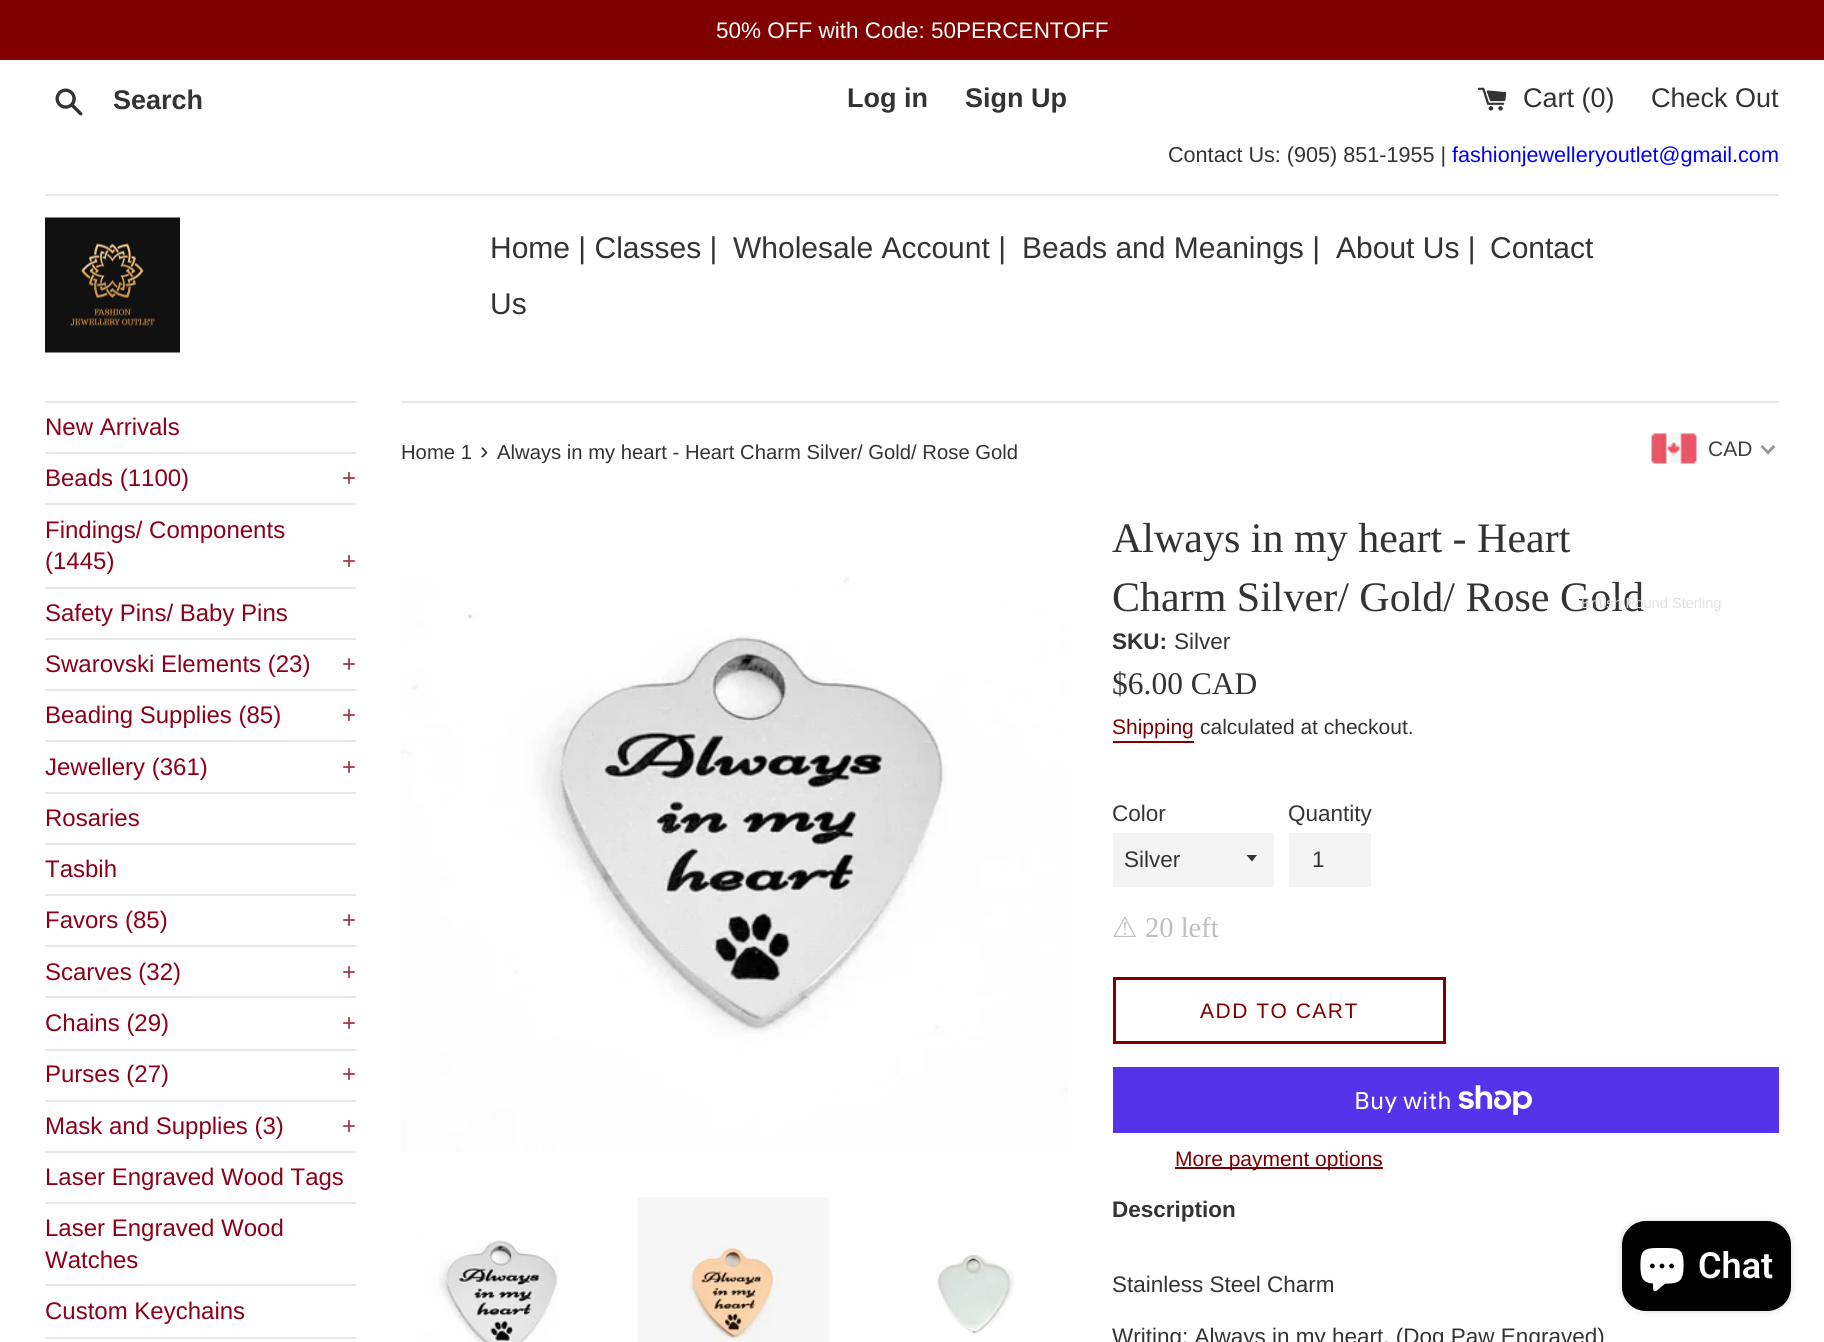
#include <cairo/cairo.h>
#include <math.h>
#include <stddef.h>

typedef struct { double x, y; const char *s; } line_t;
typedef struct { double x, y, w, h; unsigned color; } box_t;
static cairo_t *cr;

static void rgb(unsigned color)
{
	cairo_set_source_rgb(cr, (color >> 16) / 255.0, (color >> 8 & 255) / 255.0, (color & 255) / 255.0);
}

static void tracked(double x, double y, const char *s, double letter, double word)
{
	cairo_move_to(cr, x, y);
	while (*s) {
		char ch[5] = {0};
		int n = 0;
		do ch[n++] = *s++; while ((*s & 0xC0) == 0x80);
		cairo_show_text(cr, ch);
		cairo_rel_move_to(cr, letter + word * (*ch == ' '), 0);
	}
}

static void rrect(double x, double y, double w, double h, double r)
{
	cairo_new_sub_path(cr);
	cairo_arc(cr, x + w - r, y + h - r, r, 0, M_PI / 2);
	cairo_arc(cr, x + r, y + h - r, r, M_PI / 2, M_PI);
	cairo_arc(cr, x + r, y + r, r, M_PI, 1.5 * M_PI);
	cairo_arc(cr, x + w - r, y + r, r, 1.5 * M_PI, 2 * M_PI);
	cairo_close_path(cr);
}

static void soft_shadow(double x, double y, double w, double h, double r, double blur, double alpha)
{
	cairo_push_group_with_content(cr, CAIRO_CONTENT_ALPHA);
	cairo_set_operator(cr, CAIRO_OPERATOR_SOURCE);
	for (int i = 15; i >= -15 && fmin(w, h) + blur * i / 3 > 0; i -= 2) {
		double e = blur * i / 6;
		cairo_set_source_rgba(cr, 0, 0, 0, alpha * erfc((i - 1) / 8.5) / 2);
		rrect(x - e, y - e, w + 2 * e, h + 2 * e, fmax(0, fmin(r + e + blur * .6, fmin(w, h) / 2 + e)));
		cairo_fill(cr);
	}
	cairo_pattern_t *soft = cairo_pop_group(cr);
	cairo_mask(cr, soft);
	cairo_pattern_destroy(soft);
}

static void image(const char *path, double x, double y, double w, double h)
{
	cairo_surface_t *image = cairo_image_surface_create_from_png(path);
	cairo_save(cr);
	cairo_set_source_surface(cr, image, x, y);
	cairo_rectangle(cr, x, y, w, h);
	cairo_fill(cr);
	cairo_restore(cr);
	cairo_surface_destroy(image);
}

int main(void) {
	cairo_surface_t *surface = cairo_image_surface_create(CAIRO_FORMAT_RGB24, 1824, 1342);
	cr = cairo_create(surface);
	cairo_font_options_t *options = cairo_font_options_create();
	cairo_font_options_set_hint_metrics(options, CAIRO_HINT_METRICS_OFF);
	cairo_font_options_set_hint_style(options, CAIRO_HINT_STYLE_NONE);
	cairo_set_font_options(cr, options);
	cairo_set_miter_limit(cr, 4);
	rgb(0xffffff);
	cairo_paint(cr);
	rgb(0x800000);
	cairo_rectangle(cr, 0, 0, 1824, 60);
	cairo_fill(cr);
	image("img/1.png", 55, 88, 28, 28);
	image("img/2.png", 1478, 87, 29, 24);
	rgb(0xe8e8e8);
	cairo_rectangle(cr, 45, 194, 1734, 2);
	cairo_fill(cr);
	image("img/3.png", 45, 217, 135, 136);
	{
		static const box_t items[] = {
			{45, 401, 311, 2, 0xe8e8e8},
			{45, 452, 311, 2, 0xe8e8e8},
			{45, 503, 311, 2, 0xe8e8e8},
			{45, 587, 311, 2, 0xe8e8e8},
			{45, 638, 311, 2, 0xe8e8e8},
			{45, 689, 311, 2, 0xe8e8e8},
			{45, 740, 311, 2, 0xe8e8e8},
			{45, 792, 311, 2, 0xe8e8e8},
			{45, 843, 311, 2, 0xe8e8e8},
			{45, 894, 311, 2, 0xe8e8e8},
			{45, 945, 311, 2, 0xe8e8e8},
			{45, 996, 311, 2, 0xe8e8e8},
			{45, 1049, 311, 2, 0xe8e8e8},
			{45, 1100, 311, 2, 0xe8e8e8},
			{45, 1151, 311, 2, 0xe8e8e8},
			{45, 1202, 311, 2, 0xe8e8e8},
			{45, 1284, 311, 2, 0xe8e8e8},
			{45, 1337, 311, 2, 0xe8e8e8},
			{401, 401, 1378, 2, 0xe8e8e8},
		};
		for (size_t i = 0; i < sizeof items / sizeof *items; i++) {
			rgb(items[i].color);
			cairo_rectangle(cr, items[i].x, items[i].y, items[i].w, items[i].h);
			cairo_fill(cr);
		}
	}
	image("img/4.png", 401, 577, 667, 575);
	image("img/5.png", 420, 1234, 139, 108);
	image("img/6.png", 637, 1197, 193, 145);
	image("img/7.png", 937, 1255, 78, 82);
	image("img/8.png", 1651, 433, 46, 31);
	rgb(0x999999);
	cairo_new_path(cr);
	cairo_move_to(cr, 1773, 445);
	cairo_line_to(cr, 1775.5, 447);
	cairo_line_to(cr, 1768, 454.5);
	cairo_line_to(cr, 1766, 452.5);
	cairo_close_path(cr);
	cairo_fill(cr);
	cairo_new_path(cr);
	cairo_move_to(cr, 1762.5, 445);
	cairo_line_to(cr, 1770, 452.5);
	cairo_line_to(cr, 1768, 454.5);
	cairo_line_to(cr, 1760.5, 447);
	cairo_close_path(cr);
	cairo_fill(cr);
	rgb(0x800000);
	cairo_rectangle(cr, 1113, 741, 81, 2);
	cairo_fill(cr);
	rgb(0xf4f4f4);
	cairo_rectangle(cr, 1113, 833, 161, 54);
	cairo_fill(cr);
	rgb(0x333333);
	cairo_new_path(cr);
	cairo_move_to(cr, 1246.5, 855);
	cairo_line_to(cr, 1252, 861.5);
	cairo_line_to(cr, 1257, 855);
	cairo_close_path(cr);
	cairo_fill(cr);
	rgb(0xf4f4f4);
	cairo_rectangle(cr, 1289, 833, 82, 54);
	cairo_fill(cr);
	cairo_rectangle(cr, 1114.5, 978.5, 330, 64);
	rgb(0x800000);
	cairo_set_line_width(cr, 3);
	cairo_stroke(cr);
	rgb(0x5433eb);
	cairo_rectangle(cr, 1113, 1067, 666, 66);
	cairo_fill(cr);
	image("img/9.png", 1458, 1085, 74, 30);
	rgb(0x800000);
	cairo_rectangle(cr, 1175, 1167, 208, 2);
	cairo_fill(cr);
	rgb(0x000000);
	soft_shadow(1622, 1221, 169, 90, 24, 4, 0.15);
	rgb(0x000000);
	rrect(1622, 1221, 169, 90, 24);
	cairo_fill(cr);
	image("img/10.png", 1640, 1248, 44, 44);
	cairo_select_font_face(cr, "Liberation Sans", CAIRO_FONT_SLANT_NORMAL, CAIRO_FONT_WEIGHT_NORMAL);
	cairo_set_font_size(cr, 22.5);
	rgb(0xffffff);
	cairo_move_to(cr, 716, 38);
	cairo_show_text(cr, "50% OFF with Code: 50PERCENTOFF");
	cairo_select_font_face(cr, "Liberation Sans", CAIRO_FONT_SLANT_NORMAL, CAIRO_FONT_WEIGHT_BOLD);
	cairo_set_font_size(cr, 27);
	rgb(0x333333);
	{
		static const line_t items[] = {
			{113, 109, "Search"},
			{847, 107, "Log in"},
			{965, 107, "Sign Up"},
		};
		for (size_t i = 0; i < sizeof items / sizeof *items; i++) {
			cairo_move_to(cr, items[i].x, items[i].y);
			cairo_show_text(cr, items[i].s);
		}
	}
	cairo_select_font_face(cr, "Liberation Sans", CAIRO_FONT_SLANT_NORMAL, CAIRO_FONT_WEIGHT_NORMAL);
	cairo_move_to(cr, 1523, 107);
	cairo_show_text(cr, "Cart (0)");
	cairo_move_to(cr, 1651, 107);
	cairo_show_text(cr, "Check Out");
	cairo_set_font_size(cr, 21.6);
	cairo_move_to(cr, 1168, 162);
	cairo_show_text(cr, "Contact Us: (905) 851-1955 |");
	rgb(0x0000ff);
	cairo_move_to(cr, 1452, 162);
	cairo_show_text(cr, "fashionjewelleryoutlet@gmail.com");
	cairo_set_font_size(cr, 30);
	rgb(0x333333);
	{
		static const line_t items[] = {
			{490, 258, "Home | Classes |"},
			{733, 258, "Wholesale Account |"},
			{1022, 258, "Beads and Meanings |"},
			{1336, 258, "About Us |"},
			{1490, 258, "Contact"},
			{490, 314, "Us"},
		};
		for (size_t i = 0; i < sizeof items / sizeof *items; i++) {
			cairo_move_to(cr, items[i].x, items[i].y);
			cairo_show_text(cr, items[i].s);
		}
	}
	cairo_set_font_size(cr, 24);
	rgb(0x8c001a);
	cairo_move_to(cr, 45, 435);
	cairo_show_text(cr, "New Arrivals");
	cairo_move_to(cr, 45, 486);
	cairo_show_text(cr, "Beads (1100)");
	rgb(0xa33348);
	cairo_move_to(cr, 342, 486);
	cairo_show_text(cr, "+");
	rgb(0x8c001a);
	cairo_move_to(cr, 45, 538);
	cairo_show_text(cr, "Findings/ Components");
	cairo_move_to(cr, 45, 569);
	cairo_show_text(cr, "(1445)");
	rgb(0xa33348);
	cairo_move_to(cr, 342, 569);
	cairo_show_text(cr, "+");
	rgb(0x8c001a);
	cairo_move_to(cr, 45, 621);
	cairo_show_text(cr, "Safety Pins/ Baby Pins");
	cairo_move_to(cr, 45, 672);
	cairo_show_text(cr, "Swarovski Elements (23)");
	rgb(0xa33348);
	cairo_move_to(cr, 342, 672);
	cairo_show_text(cr, "+");
	rgb(0x8c001a);
	cairo_move_to(cr, 45, 723);
	cairo_show_text(cr, "Beading Supplies (85)");
	rgb(0xa33348);
	cairo_move_to(cr, 342, 723);
	cairo_show_text(cr, "+");
	rgb(0x8c001a);
	cairo_move_to(cr, 45, 775);
	cairo_show_text(cr, "Jewellery (361)");
	rgb(0xa33348);
	cairo_move_to(cr, 342, 775);
	cairo_show_text(cr, "+");
	rgb(0x8c001a);
	{
		static const line_t items[] = {
			{45, 826, "Rosaries"},
			{45, 877, "Tasbih"},
			{45, 928, "Favors (85)"},
		};
		for (size_t i = 0; i < sizeof items / sizeof *items; i++) {
			cairo_move_to(cr, items[i].x, items[i].y);
			cairo_show_text(cr, items[i].s);
		}
	}
	rgb(0xa33348);
	cairo_move_to(cr, 342, 928);
	cairo_show_text(cr, "+");
	rgb(0x8c001a);
	cairo_move_to(cr, 45, 980);
	cairo_show_text(cr, "Scarves (32)");
	rgb(0xa33348);
	cairo_move_to(cr, 342, 980);
	cairo_show_text(cr, "+");
	rgb(0x8c001a);
	cairo_move_to(cr, 45, 1031);
	cairo_show_text(cr, "Chains (29)");
	rgb(0xa33348);
	cairo_move_to(cr, 342, 1031);
	cairo_show_text(cr, "+");
	rgb(0x8c001a);
	cairo_move_to(cr, 45, 1082);
	cairo_show_text(cr, "Purses (27)");
	rgb(0xa33348);
	cairo_move_to(cr, 342, 1082);
	cairo_show_text(cr, "+");
	rgb(0x8c001a);
	cairo_move_to(cr, 45, 1134);
	cairo_show_text(cr, "Mask and Supplies (3)");
	rgb(0xa33348);
	cairo_move_to(cr, 342, 1134);
	cairo_show_text(cr, "+");
	rgb(0x8c001a);
	{
		static const line_t items[] = {
			{45, 1185, "Laser Engraved Wood Tags"},
			{45, 1236, "Laser Engraved Wood"},
			{45, 1268, "Watches"},
			{45, 1319, "Custom Keychains"},
		};
		for (size_t i = 0; i < sizeof items / sizeof *items; i++) {
			cairo_move_to(cr, items[i].x, items[i].y);
			cairo_show_text(cr, items[i].s);
		}
	}
	cairo_set_font_size(cr, 20.25);
	rgb(0x333333);
	cairo_move_to(cr, 401, 459);
	cairo_show_text(cr, "Home 1");
	cairo_set_font_size(cr, 25);
	cairo_move_to(cr, 480, 459);
	cairo_show_text(cr, "›");
	cairo_set_font_size(cr, 20.25);
	cairo_move_to(cr, 497, 459);
	cairo_show_text(cr, "Always in my heart - Heart Charm Silver/ Gold/ Rose Gold");
	cairo_select_font_face(cr, "Liberation Serif", CAIRO_FONT_SLANT_NORMAL, CAIRO_FONT_WEIGHT_NORMAL);
	cairo_set_font_size(cr, 42);
	cairo_move_to(cr, 1112, 552);
	cairo_show_text(cr, "Always in my heart - Heart");
	cairo_move_to(cr, 1112, 611);
	cairo_show_text(cr, "Charm Silver/ Gold/ Rose Gold");
	cairo_select_font_face(cr, "Liberation Sans", CAIRO_FONT_SLANT_NORMAL, CAIRO_FONT_WEIGHT_NORMAL);
	cairo_set_font_size(cr, 21);
	rgb(0x403f3f);
	cairo_move_to(cr, 1708, 456);
	cairo_show_text(cr, "CAD");
	cairo_set_font_size(cr, 14.6);
	rgb(0xe1e1e1);
	cairo_move_to(cr, 1581, 608);
	cairo_show_text(cr, "British Pound Sterling");
	cairo_select_font_face(cr, "Liberation Sans", CAIRO_FONT_SLANT_NORMAL, CAIRO_FONT_WEIGHT_BOLD);
	cairo_set_font_size(cr, 22.5);
	rgb(0x333333);
	cairo_move_to(cr, 1112, 649);
	cairo_show_text(cr, "SKU:");
	cairo_select_font_face(cr, "Liberation Sans", CAIRO_FONT_SLANT_NORMAL, CAIRO_FONT_WEIGHT_NORMAL);
	cairo_move_to(cr, 1174, 649);
	cairo_show_text(cr, "Silver");
	cairo_select_font_face(cr, "Liberation Serif", CAIRO_FONT_SLANT_NORMAL, CAIRO_FONT_WEIGHT_NORMAL);
	cairo_set_font_size(cr, 31.5);
	cairo_move_to(cr, 1112, 694);
	cairo_show_text(cr, "$6.00 CAD");
	cairo_select_font_face(cr, "Liberation Sans", CAIRO_FONT_SLANT_NORMAL, CAIRO_FONT_WEIGHT_NORMAL);
	cairo_set_font_size(cr, 21);
	rgb(0x800000);
	cairo_move_to(cr, 1112, 734);
	cairo_show_text(cr, "Shipping");
	rgb(0x333333);
	cairo_move_to(cr, 1200, 734);
	cairo_show_text(cr, "calculated at checkout.");
	cairo_set_font_size(cr, 22.5);
	{
		static const line_t items[] = {
			{1112, 821, "Color"},
			{1124, 867, "Silver"},
			{1288, 821, "Quantity"},
			{1312, 867, "1"},
		};
		for (size_t i = 0; i < sizeof items / sizeof *items; i++) {
			cairo_move_to(cr, items[i].x, items[i].y);
			cairo_show_text(cr, items[i].s);
		}
	}
	cairo_select_font_face(cr, "DejaVu Sans", CAIRO_FONT_SLANT_NORMAL, CAIRO_FONT_WEIGHT_NORMAL);
	cairo_set_font_size(cr, 28.5);
	rgb(0xc0c0c0);
	cairo_move_to(cr, 1112, 937);
	cairo_show_text(cr, "⚠");
	cairo_select_font_face(cr, "Liberation Serif", CAIRO_FONT_SLANT_NORMAL, CAIRO_FONT_WEIGHT_NORMAL);
	cairo_move_to(cr, 1145, 937);
	cairo_show_text(cr, "20 left");
	cairo_select_font_face(cr, "Liberation Sans", CAIRO_FONT_SLANT_NORMAL, CAIRO_FONT_WEIGHT_NORMAL);
	cairo_set_font_size(cr, 21);
	rgb(0x800000);
	tracked(1200, 1018, "ADD TO CART", 1.5, 0);
	cairo_select_font_face(cr, "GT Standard", CAIRO_FONT_SLANT_NORMAL, CAIRO_FONT_WEIGHT_NORMAL);
	cairo_set_font_size(cr, 24);
	rgb(0xffffff);
	cairo_move_to(cr, 1354, 1109);
	cairo_show_text(cr, "Buy with");
	cairo_select_font_face(cr, "Liberation Sans", CAIRO_FONT_SLANT_NORMAL, CAIRO_FONT_WEIGHT_NORMAL);
	cairo_set_font_size(cr, 21);
	rgb(0x800000);
	cairo_move_to(cr, 1175, 1166);
	cairo_show_text(cr, "More payment options");
	cairo_select_font_face(cr, "Liberation Sans", CAIRO_FONT_SLANT_NORMAL, CAIRO_FONT_WEIGHT_BOLD);
	cairo_set_font_size(cr, 22.5);
	rgb(0x333333);
	cairo_move_to(cr, 1112, 1217);
	cairo_show_text(cr, "Description");
	cairo_select_font_face(cr, "Liberation Sans", CAIRO_FONT_SLANT_NORMAL, CAIRO_FONT_WEIGHT_NORMAL);
	cairo_move_to(cr, 1112, 1292);
	cairo_show_text(cr, "Stainless Steel Charm");
	cairo_move_to(cr, 1112, 1344);
	cairo_show_text(cr, "Writing: Always in my heart, (Dog Paw Engraved)");
	cairo_select_font_face(cr, "Roboto SemiBold", CAIRO_FONT_SLANT_NORMAL, CAIRO_FONT_WEIGHT_NORMAL);
	cairo_set_font_size(cr, 36);
	rgb(0xffffff);
	cairo_move_to(cr, 1698, 1278);
	cairo_show_text(cr, "Chat");
	cairo_surface_write_to_png(surface, "page.png");
	cairo_font_options_destroy(options);
	cairo_destroy(cr);
	cairo_surface_destroy(surface);
	return 0;
}
